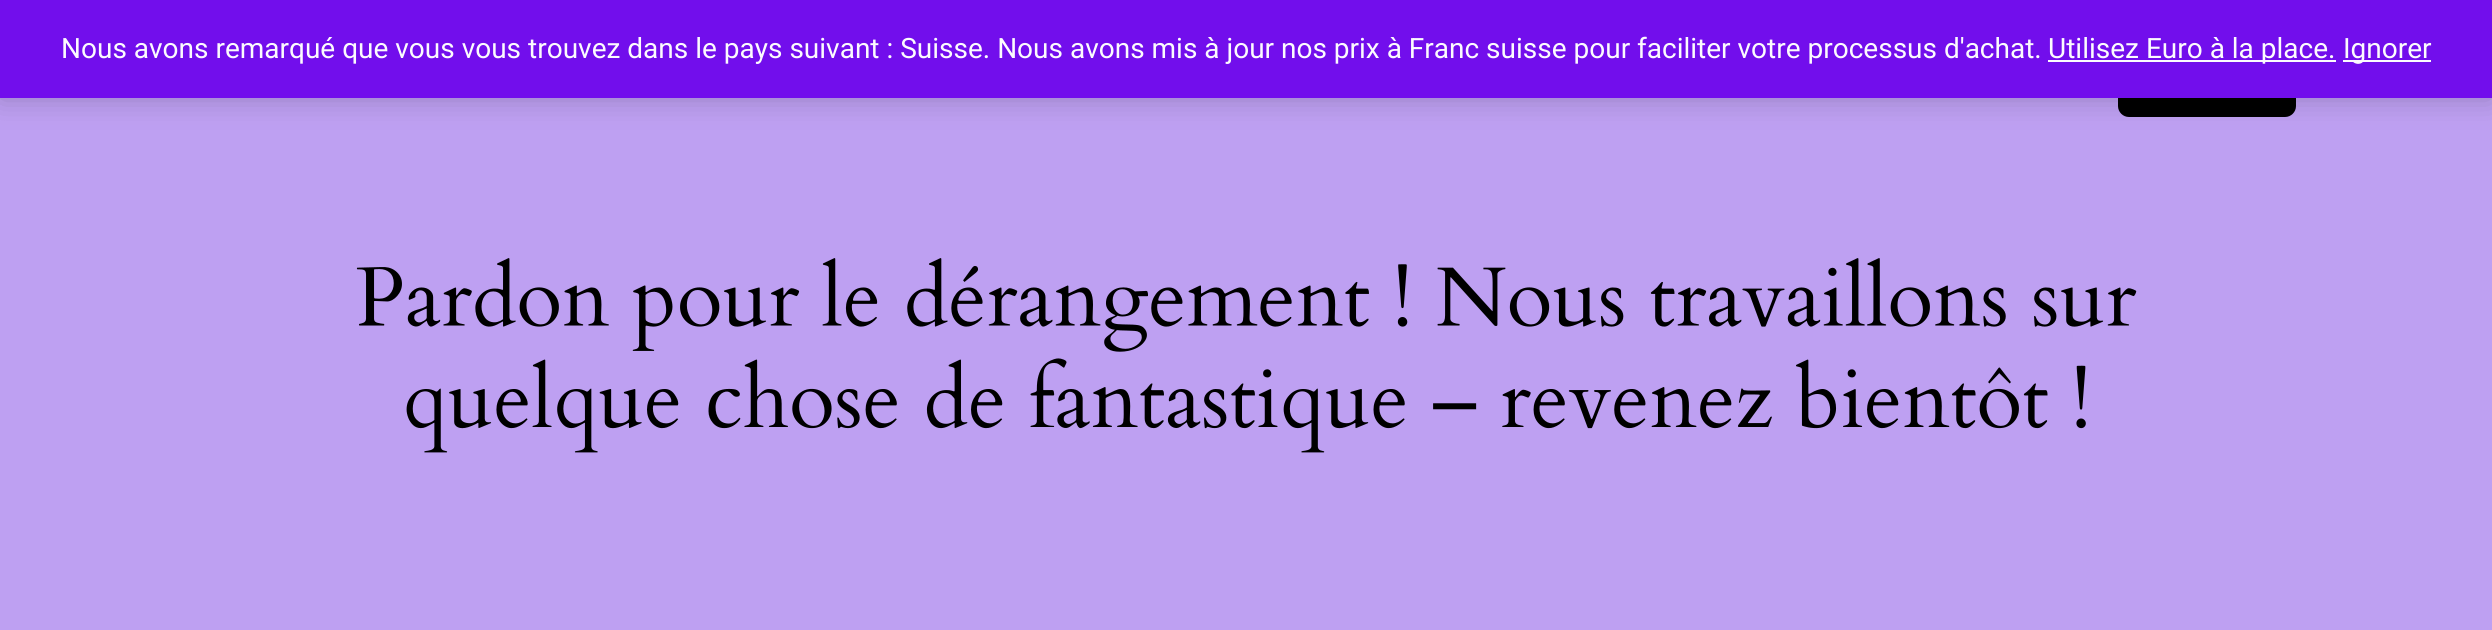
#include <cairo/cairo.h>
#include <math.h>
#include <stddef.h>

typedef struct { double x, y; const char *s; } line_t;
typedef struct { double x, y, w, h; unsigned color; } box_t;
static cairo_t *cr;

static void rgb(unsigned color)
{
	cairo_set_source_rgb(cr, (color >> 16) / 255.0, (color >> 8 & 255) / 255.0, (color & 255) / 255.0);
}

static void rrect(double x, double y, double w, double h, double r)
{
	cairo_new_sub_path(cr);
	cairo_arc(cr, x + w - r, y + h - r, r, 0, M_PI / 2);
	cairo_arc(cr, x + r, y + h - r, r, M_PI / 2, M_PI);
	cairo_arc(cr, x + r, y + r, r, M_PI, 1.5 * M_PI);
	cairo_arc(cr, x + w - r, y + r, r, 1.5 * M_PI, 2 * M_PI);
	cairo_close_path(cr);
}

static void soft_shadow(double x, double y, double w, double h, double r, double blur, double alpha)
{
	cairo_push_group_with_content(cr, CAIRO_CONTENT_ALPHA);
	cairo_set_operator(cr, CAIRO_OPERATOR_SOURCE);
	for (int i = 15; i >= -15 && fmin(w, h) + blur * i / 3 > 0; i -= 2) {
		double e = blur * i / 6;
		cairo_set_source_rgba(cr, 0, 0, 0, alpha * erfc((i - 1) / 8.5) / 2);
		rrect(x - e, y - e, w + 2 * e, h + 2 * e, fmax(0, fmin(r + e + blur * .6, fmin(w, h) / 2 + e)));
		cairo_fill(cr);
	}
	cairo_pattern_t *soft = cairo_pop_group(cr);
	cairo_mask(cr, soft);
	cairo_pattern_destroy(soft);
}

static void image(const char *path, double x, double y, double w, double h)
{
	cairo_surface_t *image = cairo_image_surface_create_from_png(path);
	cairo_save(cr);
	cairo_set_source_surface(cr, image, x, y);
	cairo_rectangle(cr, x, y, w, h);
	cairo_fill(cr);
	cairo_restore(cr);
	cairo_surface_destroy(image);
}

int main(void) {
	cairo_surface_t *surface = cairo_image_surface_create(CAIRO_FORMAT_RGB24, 2492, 630);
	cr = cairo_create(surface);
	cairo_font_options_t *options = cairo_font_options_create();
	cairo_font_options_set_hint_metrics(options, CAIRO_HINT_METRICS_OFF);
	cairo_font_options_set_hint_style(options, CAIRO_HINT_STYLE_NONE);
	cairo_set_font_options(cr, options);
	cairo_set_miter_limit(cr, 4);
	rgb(0xbea0f2);
	cairo_paint(cr);
	rgb(0x000000);
	rrect(2118, 46, 178, 71, 11);
	cairo_fill(cr);
	rgb(0x000000);
	soft_shadow(0, 2, 2492, 98, 0, 14, 0.2);
	{
		static const box_t items[] = {
			{0, 0, 2492, 98, 0x720eec},
			{2048, 60, 288, 2, 0xfcfbfe},
			{2343, 60, 88, 2, 0xfcfbfe},
		};
		for (size_t i = 0; i < sizeof items / sizeof *items; i++) {
			rgb(items[i].color);
			cairo_rectangle(cr, items[i].x, items[i].y, items[i].w, items[i].h);
			cairo_fill(cr);
		}
	}
	image("img/1.png", 356, 258, 1781, 94);
	image("img/2.png", 406, 358, 1680, 95);
	cairo_select_font_face(cr, "Roboto", CAIRO_FONT_SLANT_NORMAL, CAIRO_FONT_WEIGHT_NORMAL);
	cairo_set_font_size(cr, 28);
	{
		static const line_t items[] = {
			{61, 58, "Nous avons remarqué que vous vous trouvez dans le pays suivant : Suisse. Nous avons mis à jour nos prix à Franc suisse pour faciliter votre processus d'achat."},
			{2048, 58, "Utilisez Euro à la place."},
			{2343, 58, "Ignorer"},
		};
		for (size_t i = 0; i < sizeof items / sizeof *items; i++) {
			cairo_move_to(cr, items[i].x, items[i].y);
			cairo_show_text(cr, items[i].s);
		}
	}
	cairo_surface_write_to_png(surface, "page.png");
	cairo_font_options_destroy(options);
	cairo_destroy(cr);
	cairo_surface_destroy(surface);
	return 0;
}
